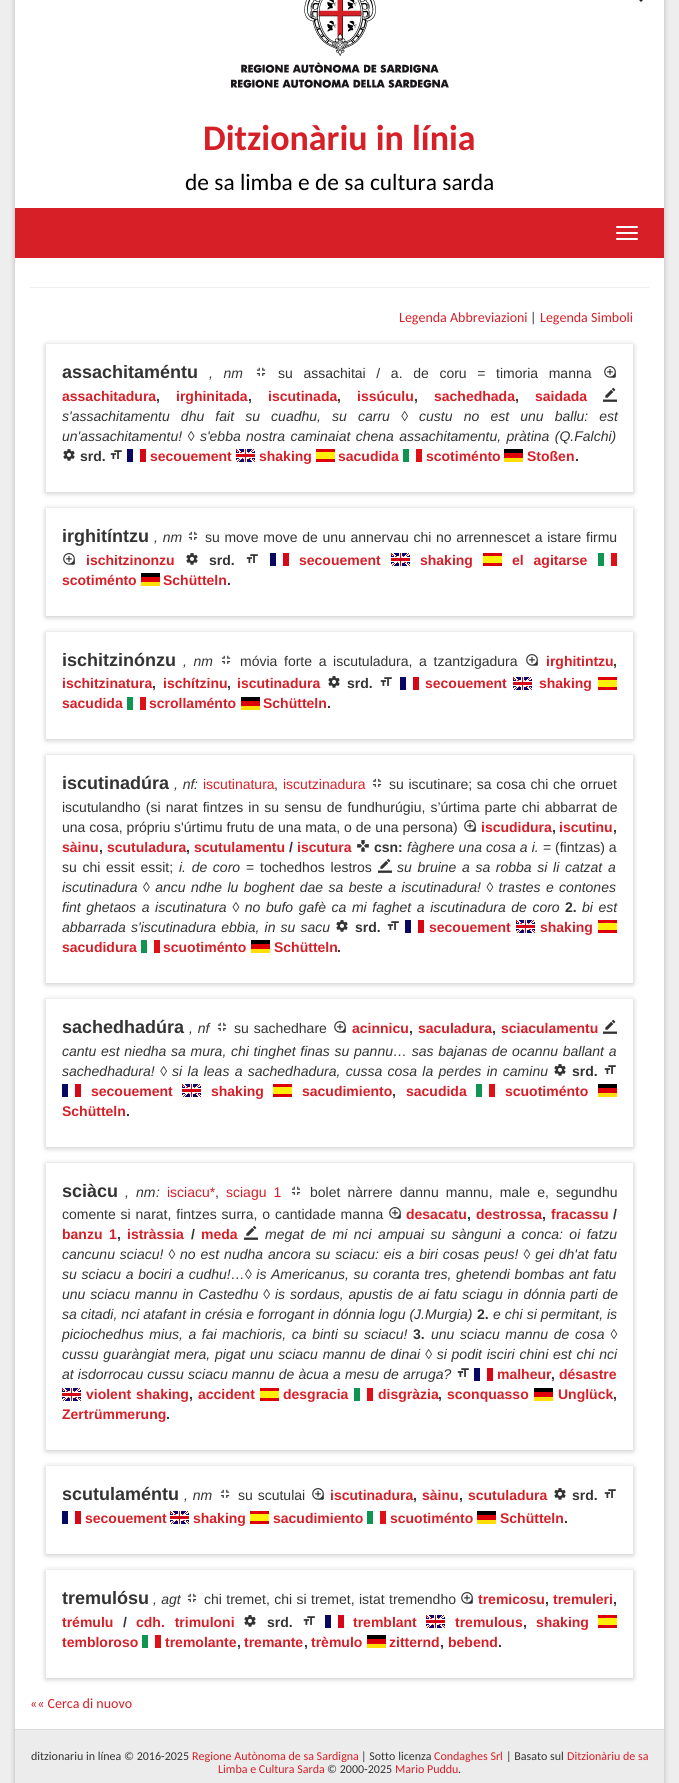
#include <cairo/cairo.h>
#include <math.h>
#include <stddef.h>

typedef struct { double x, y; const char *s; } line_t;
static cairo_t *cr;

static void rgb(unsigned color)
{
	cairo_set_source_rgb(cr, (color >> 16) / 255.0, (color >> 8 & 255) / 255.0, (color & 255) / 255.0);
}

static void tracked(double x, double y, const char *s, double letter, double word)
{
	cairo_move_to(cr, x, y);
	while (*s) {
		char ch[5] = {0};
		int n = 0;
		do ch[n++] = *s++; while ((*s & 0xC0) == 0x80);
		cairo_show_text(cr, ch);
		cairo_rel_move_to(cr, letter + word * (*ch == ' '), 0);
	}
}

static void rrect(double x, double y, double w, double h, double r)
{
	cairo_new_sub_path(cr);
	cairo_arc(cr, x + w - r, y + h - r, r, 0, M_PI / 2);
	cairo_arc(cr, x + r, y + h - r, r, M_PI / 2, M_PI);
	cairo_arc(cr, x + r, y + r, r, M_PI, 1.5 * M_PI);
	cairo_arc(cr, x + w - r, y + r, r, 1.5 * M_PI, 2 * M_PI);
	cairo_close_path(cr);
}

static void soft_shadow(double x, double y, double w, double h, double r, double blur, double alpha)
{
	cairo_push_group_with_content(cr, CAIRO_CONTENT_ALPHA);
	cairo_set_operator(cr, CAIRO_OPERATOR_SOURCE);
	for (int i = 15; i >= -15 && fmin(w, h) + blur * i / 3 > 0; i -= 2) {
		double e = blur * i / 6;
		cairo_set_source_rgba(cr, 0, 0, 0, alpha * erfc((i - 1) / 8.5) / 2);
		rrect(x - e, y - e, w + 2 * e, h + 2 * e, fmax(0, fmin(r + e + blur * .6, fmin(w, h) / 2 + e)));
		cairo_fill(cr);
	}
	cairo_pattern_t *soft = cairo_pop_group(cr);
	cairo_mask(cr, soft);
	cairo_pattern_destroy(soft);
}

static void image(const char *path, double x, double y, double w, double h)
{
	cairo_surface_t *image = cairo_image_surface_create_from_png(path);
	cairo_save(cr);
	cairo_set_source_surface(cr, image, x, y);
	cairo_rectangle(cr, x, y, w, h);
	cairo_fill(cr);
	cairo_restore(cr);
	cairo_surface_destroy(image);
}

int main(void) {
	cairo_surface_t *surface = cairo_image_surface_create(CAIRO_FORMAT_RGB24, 679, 1783);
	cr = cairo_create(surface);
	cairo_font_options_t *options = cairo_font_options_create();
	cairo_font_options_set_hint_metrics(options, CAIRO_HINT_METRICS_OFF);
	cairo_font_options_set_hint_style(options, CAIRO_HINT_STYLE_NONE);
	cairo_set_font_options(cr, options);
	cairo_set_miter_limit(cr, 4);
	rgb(0xeeeeee);
	cairo_paint(cr);
	rgb(0x000000);
	soft_shadow(15, -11, 649, 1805, 2, 3, 0.12);
	soft_shadow(15, -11, 649, 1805, 2, 3, 0.12);
	rgb(0xffffff);
	cairo_rectangle(cr, 15, 0, 649, 1729);
	cairo_fill(cr);
	rgb(0xeeeeee);
	cairo_rectangle(cr, 30, 287, 619, 1);
	cairo_fill(cr);
	rgb(0x212121);
	cairo_new_path(cr);
	cairo_move_to(cr, 637, -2);
	cairo_line_to(cr, 645, -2);
	cairo_line_to(cr, 641, 2);
	cairo_close_path(cr);
	cairo_fill(cr);
	image("img/1.png", 231, 0, 218, 88);
	rgb(0xd61f27);
	cairo_rectangle(cr, 15, 208, 649, 50);
	cairo_fill(cr);
	rgb(0xffffff);
	rrect(616, 226, 22, 2, 1);
	cairo_fill(cr);
	rrect(616, 232, 22, 2, 1);
	cairo_fill(cr);
	rrect(616, 238, 22, 2, 1);
	cairo_fill(cr);
	cairo_save(cr);
	cairo_set_fill_rule(cr, CAIRO_FILL_RULE_EVEN_ODD);
	cairo_new_path(cr);
	cairo_move_to(cr, 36, 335);
	cairo_line_to(cr, 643, 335);
	cairo_line_to(cr, 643, 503);
	cairo_line_to(cr, 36, 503);
	cairo_close_path(cr);
	cairo_move_to(cr, 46, 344);
	cairo_line_to(cr, 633, 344);
	cairo_line_to(cr, 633, 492);
	cairo_line_to(cr, 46, 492);
	cairo_close_path(cr);
	cairo_clip(cr);
	rgb(0x000000);
	soft_shadow(46, 345, 587, 148, 0, 3, 0.12);
	soft_shadow(46, 345, 587, 148, 0, 3, 0.12);
	cairo_restore(cr);
	image("img/2.png", 256, 367, 10, 9);
	image("img/3.png", 604, 366, 12, 12);
	image("img/4.png", 603, 387, 14, 15);
	image("img/5.png", 63, 449, 12, 12);
	image("img/6.png", 110, 450, 12, 9);
	image("img/7.png", 127, 449, 19, 13);
	image("img/8.png", 236, 449, 19, 13);
	image("img/9.png", 316, 449, 19, 13);
	image("img/10.png", 403, 449, 19, 13);
	image("img/11.png", 504, 449, 19, 13);
	cairo_save(cr);
	cairo_set_fill_rule(cr, CAIRO_FILL_RULE_EVEN_ODD);
	cairo_new_path(cr);
	cairo_move_to(cr, 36, 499);
	cairo_line_to(cr, 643, 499);
	cairo_line_to(cr, 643, 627);
	cairo_line_to(cr, 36, 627);
	cairo_close_path(cr);
	cairo_move_to(cr, 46, 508);
	cairo_line_to(cr, 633, 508);
	cairo_line_to(cr, 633, 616);
	cairo_line_to(cr, 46, 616);
	cairo_close_path(cr);
	cairo_clip(cr);
	rgb(0x000000);
	soft_shadow(46, 509, 587, 108, 0, 3, 0.12);
	soft_shadow(46, 509, 587, 108, 0, 3, 0.12);
	cairo_restore(cr);
	image("img/2.png", 188, 531, 10, 9);
	image("img/3.png", 63, 553, 12, 12);
	image("img/5.png", 186, 553, 12, 12);
	image("img/6.png", 246, 554, 12, 9);
	image("img/7.png", 270, 553, 19, 13);
	image("img/8.png", 391, 553, 19, 13);
	image("img/9.png", 483, 553, 19, 13);
	image("img/10.png", 598, 553, 19, 13);
	image("img/11.png", 141, 573, 19, 13);
	cairo_save(cr);
	cairo_set_fill_rule(cr, CAIRO_FILL_RULE_EVEN_ODD);
	cairo_new_path(cr);
	cairo_move_to(cr, 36, 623);
	cairo_line_to(cr, 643, 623);
	cairo_line_to(cr, 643, 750);
	cairo_line_to(cr, 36, 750);
	cairo_close_path(cr);
	cairo_move_to(cr, 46, 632);
	cairo_line_to(cr, 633, 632);
	cairo_line_to(cr, 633, 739);
	cairo_line_to(cr, 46, 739);
	cairo_close_path(cr);
	cairo_clip(cr);
	rgb(0x000000);
	soft_shadow(46, 633, 587, 107, 0, 3, 0.12);
	soft_shadow(46, 633, 587, 107, 0, 3, 0.12);
	cairo_restore(cr);
	image("img/2.png", 221, 655, 10, 9);
	image("img/3.png", 526, 654, 12, 12);
	image("img/5.png", 328, 676, 12, 12);
	image("img/6.png", 380, 677, 12, 9);
	image("img/7.png", 400, 677, 19, 13);
	image("img/8.png", 513, 677, 19, 13);
	image("img/9.png", 598, 677, 19, 13);
	image("img/10.png", 127, 697, 19, 13);
	image("img/11.png", 241, 697, 19, 13);
	cairo_save(cr);
	cairo_set_fill_rule(cr, CAIRO_FILL_RULE_EVEN_ODD);
	cairo_new_path(cr);
	cairo_move_to(cr, 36, 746);
	cairo_line_to(cr, 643, 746);
	cairo_line_to(cr, 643, 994);
	cairo_line_to(cr, 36, 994);
	cairo_close_path(cr);
	cairo_move_to(cr, 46, 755);
	cairo_line_to(cr, 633, 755);
	cairo_line_to(cr, 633, 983);
	cairo_line_to(cr, 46, 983);
	cairo_close_path(cr);
	cairo_clip(cr);
	rgb(0x000000);
	soft_shadow(46, 756, 587, 228, 0, 3, 0.12);
	soft_shadow(46, 756, 587, 228, 0, 3, 0.12);
	cairo_restore(cr);
	image("img/2.png", 372, 778, 10, 9);
	image("img/3.png", 464, 820, 12, 12);
	image("img/12.png", 357, 840, 12, 12);
	image("img/4.png", 378, 858, 14, 15);
	image("img/5.png", 336, 920, 12, 12);
	image("img/6.png", 387, 921, 12, 9);
	image("img/7.png", 405, 920, 19, 13);
	image("img/8.png", 516, 920, 19, 13);
	image("img/9.png", 598, 920, 19, 13);
	image("img/10.png", 141, 940, 19, 13);
	image("img/11.png", 251, 940, 19, 13);
	cairo_save(cr);
	cairo_set_fill_rule(cr, CAIRO_FILL_RULE_EVEN_ODD);
	cairo_new_path(cr);
	cairo_move_to(cr, 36, 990);
	cairo_line_to(cr, 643, 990);
	cairo_line_to(cr, 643, 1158);
	cairo_line_to(cr, 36, 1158);
	cairo_close_path(cr);
	cairo_move_to(cr, 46, 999);
	cairo_line_to(cr, 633, 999);
	cairo_line_to(cr, 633, 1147);
	cairo_line_to(cr, 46, 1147);
	cairo_close_path(cr);
	cairo_clip(cr);
	rgb(0x000000);
	soft_shadow(46, 1000, 587, 148, 0, 3, 0.12);
	soft_shadow(46, 1000, 587, 148, 0, 3, 0.12);
	cairo_restore(cr);
	image("img/2.png", 217, 1022, 10, 9);
	image("img/3.png", 334, 1021, 12, 12);
	image("img/4.png", 603, 1019, 14, 15);
	image("img/5.png", 554, 1064, 12, 12);
	image("img/6.png", 604, 1065, 12, 9);
	image("img/7.png", 62, 1084, 19, 13);
	image("img/8.png", 182, 1084, 19, 13);
	image("img/9.png", 273, 1084, 19, 13);
	image("img/10.png", 476, 1084, 19, 13);
	image("img/11.png", 598, 1084, 19, 13);
	cairo_save(cr);
	cairo_set_fill_rule(cr, CAIRO_FILL_RULE_EVEN_ODD);
	cairo_new_path(cr);
	cairo_move_to(cr, 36, 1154);
	cairo_line_to(cr, 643, 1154);
	cairo_line_to(cr, 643, 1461);
	cairo_line_to(cr, 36, 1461);
	cairo_close_path(cr);
	cairo_move_to(cr, 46, 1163);
	cairo_line_to(cr, 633, 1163);
	cairo_line_to(cr, 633, 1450);
	cairo_line_to(cr, 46, 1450);
	cairo_close_path(cr);
	cairo_clip(cr);
	rgb(0x000000);
	soft_shadow(46, 1164, 587, 287, 0, 3, 0.12);
	soft_shadow(46, 1164, 587, 287, 0, 3, 0.12);
	cairo_restore(cr);
	image("img/2.png", 291, 1186, 10, 9);
	image("img/3.png", 389, 1207, 12, 12);
	image("img/4.png", 244, 1225, 14, 15);
	image("img/6.png", 457, 1368, 12, 9);
	image("img/7.png", 474, 1368, 19, 13);
	image("img/8.png", 62, 1388, 19, 13);
	image("img/9.png", 260, 1388, 19, 13);
	image("img/10.png", 354, 1388, 19, 13);
	image("img/11.png", 534, 1388, 19, 13);
	cairo_save(cr);
	cairo_set_fill_rule(cr, CAIRO_FILL_RULE_EVEN_ODD);
	cairo_new_path(cr);
	cairo_move_to(cr, 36, 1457);
	cairo_line_to(cr, 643, 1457);
	cairo_line_to(cr, 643, 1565);
	cairo_line_to(cr, 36, 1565);
	cairo_close_path(cr);
	cairo_move_to(cr, 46, 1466);
	cairo_line_to(cr, 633, 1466);
	cairo_line_to(cr, 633, 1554);
	cairo_line_to(cr, 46, 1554);
	cairo_close_path(cr);
	cairo_clip(cr);
	rgb(0x000000);
	soft_shadow(46, 1467, 587, 88, 0, 3, 0.12);
	soft_shadow(46, 1467, 587, 88, 0, 3, 0.12);
	cairo_restore(cr);
	image("img/2.png", 220, 1489, 10, 9);
	image("img/3.png", 312, 1488, 12, 12);
	image("img/5.png", 554, 1488, 12, 12);
	image("img/6.png", 604, 1489, 12, 9);
	image("img/7.png", 62, 1511, 19, 13);
	image("img/8.png", 170, 1511, 19, 13);
	image("img/9.png", 250, 1511, 19, 13);
	image("img/10.png", 367, 1511, 19, 13);
	image("img/11.png", 477, 1511, 19, 13);
	cairo_save(cr);
	cairo_set_fill_rule(cr, CAIRO_FILL_RULE_EVEN_ODD);
	cairo_new_path(cr);
	cairo_move_to(cr, 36, 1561);
	cairo_line_to(cr, 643, 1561);
	cairo_line_to(cr, 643, 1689);
	cairo_line_to(cr, 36, 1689);
	cairo_close_path(cr);
	cairo_move_to(cr, 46, 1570);
	cairo_line_to(cr, 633, 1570);
	cairo_line_to(cr, 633, 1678);
	cairo_line_to(cr, 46, 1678);
	cairo_close_path(cr);
	cairo_clip(cr);
	rgb(0x000000);
	soft_shadow(46, 1571, 587, 108, 0, 3, 0.12);
	soft_shadow(46, 1571, 587, 108, 0, 3, 0.12);
	cairo_restore(cr);
	image("img/2.png", 187, 1593, 10, 9);
	image("img/3.png", 461, 1592, 12, 12);
	image("img/5.png", 244, 1615, 12, 12);
	image("img/6.png", 303, 1616, 12, 9);
	image("img/7.png", 325, 1615, 19, 13);
	image("img/8.png", 426, 1615, 19, 13);
	image("img/9.png", 598, 1615, 19, 13);
	image("img/10.png", 142, 1635, 19, 13);
	image("img/11.png", 367, 1635, 19, 13);
	rgb(0xececec);
	cairo_rectangle(cr, 15, 1730, 649, 53);
	cairo_fill(cr);
	rgb(0xdddddd);
	cairo_rectangle(cr, 15, 1729, 649, 1);
	cairo_fill(cr);
	cairo_select_font_face(cr, "Carlito", CAIRO_FONT_SLANT_NORMAL, CAIRO_FONT_WEIGHT_BOLD);
	cairo_set_font_size(cr, 36);
	rgb(0xd61f27);
	cairo_move_to(cr, 203, 150);
	cairo_show_text(cr, "Ditzionàriu in línia");
	cairo_select_font_face(cr, "Carlito", CAIRO_FONT_SLANT_NORMAL, CAIRO_FONT_WEIGHT_NORMAL);
	cairo_set_font_size(cr, 23.4);
	rgb(0x000000);
	cairo_move_to(cr, 185, 190);
	cairo_show_text(cr, "de sa limba e de sa cultura sarda");
	cairo_set_font_size(cr, 14);
	rgb(0xd61f27);
	cairo_move_to(cr, 399, 322);
	cairo_show_text(cr, "Legenda Abbreviazioni");
	rgb(0x333333);
	cairo_move_to(cr, 530, 322);
	cairo_show_text(cr, "|");
	rgb(0xd61f27);
	cairo_move_to(cr, 540, 322);
	cairo_show_text(cr, "Legenda Simboli");
	cairo_select_font_face(cr, "Liberation Sans", CAIRO_FONT_SLANT_NORMAL, CAIRO_FONT_WEIGHT_BOLD);
	cairo_set_font_size(cr, 18);
	rgb(0x333333);
	cairo_move_to(cr, 62, 378);
	cairo_show_text(cr, "assachitaméntu");
	cairo_select_font_face(cr, "Liberation Sans", CAIRO_FONT_SLANT_ITALIC, CAIRO_FONT_WEIGHT_NORMAL);
	cairo_set_font_size(cr, 14);
	tracked(209, 378, ", nm", 0, 6.75);
	cairo_select_font_face(cr, "Liberation Sans", CAIRO_FONT_SLANT_NORMAL, CAIRO_FONT_WEIGHT_NORMAL);
	tracked(278, 378, "su assachitai / a. de coru = timoria manna", 0, 6.75);
	cairo_select_font_face(cr, "Liberation Sans", CAIRO_FONT_SLANT_NORMAL, CAIRO_FONT_WEIGHT_BOLD);
	rgb(0xd61f27);
	cairo_move_to(cr, 62, 401);
	cairo_show_text(cr, "assachitadura");
	rgb(0x333333);
	cairo_move_to(cr, 156, 401);
	cairo_show_text(cr, ",");
	rgb(0xd61f27);
	cairo_move_to(cr, 176, 401);
	cairo_show_text(cr, "irghinitada");
	rgb(0x333333);
	cairo_move_to(cr, 248, 401);
	cairo_show_text(cr, ",");
	rgb(0xd61f27);
	cairo_move_to(cr, 268, 401);
	cairo_show_text(cr, "iscutinada");
	rgb(0x333333);
	cairo_move_to(cr, 337, 401);
	cairo_show_text(cr, ",");
	rgb(0xd61f27);
	cairo_move_to(cr, 357, 401);
	cairo_show_text(cr, "issúculu");
	rgb(0x333333);
	cairo_move_to(cr, 414, 401);
	cairo_show_text(cr, ",");
	rgb(0xd61f27);
	cairo_move_to(cr, 434, 401);
	cairo_show_text(cr, "sachedhada");
	rgb(0x333333);
	cairo_move_to(cr, 515, 401);
	cairo_show_text(cr, ",");
	rgb(0xd61f27);
	cairo_move_to(cr, 535, 401);
	cairo_show_text(cr, "saidada");
	cairo_select_font_face(cr, "Liberation Sans", CAIRO_FONT_SLANT_ITALIC, CAIRO_FONT_WEIGHT_NORMAL);
	rgb(0x333333);
	tracked(62, 421, "s'assachitamentu dhu fait su cuadhu, su carru ◊ custu no est unu ballu: est", 0, 7.25);
	tracked(62, 441, "un'assachitamentu! ◊ s'ebba nostra caminaiat chena assachitamentu, pràtina (Q.Falchi)", 0, 1.5);
	cairo_select_font_face(cr, "Liberation Sans", CAIRO_FONT_SLANT_NORMAL, CAIRO_FONT_WEIGHT_BOLD);
	cairo_move_to(cr, 80, 461);
	cairo_show_text(cr, "srd.");
	rgb(0xd61f27);
	{
		static const line_t items[] = {
			{150, 461, "secouement"},
			{259, 461, "shaking"},
			{338, 461, "sacudida"},
			{426, 461, "scotiménto"},
			{527, 461, "Stoßen"},
		};
		for (size_t i = 0; i < sizeof items / sizeof *items; i++) {
			cairo_move_to(cr, items[i].x, items[i].y);
			cairo_show_text(cr, items[i].s);
		}
	}
	rgb(0x333333);
	cairo_move_to(cr, 575, 461);
	cairo_show_text(cr, ".");
	cairo_set_font_size(cr, 18);
	cairo_move_to(cr, 62, 542);
	cairo_show_text(cr, "irghitíntzu");
	cairo_select_font_face(cr, "Liberation Sans", CAIRO_FONT_SLANT_ITALIC, CAIRO_FONT_WEIGHT_NORMAL);
	cairo_set_font_size(cr, 14);
	tracked(154, 542, ", nm", 0, 1);
	cairo_select_font_face(cr, "Liberation Sans", CAIRO_FONT_SLANT_NORMAL, CAIRO_FONT_WEIGHT_NORMAL);
	tracked(205, 542, "su move move de unu annervau chi no arrennescet a istare firmu", 0, 0.75);
	cairo_select_font_face(cr, "Liberation Sans", CAIRO_FONT_SLANT_NORMAL, CAIRO_FONT_WEIGHT_BOLD);
	rgb(0xd61f27);
	cairo_move_to(cr, 86, 565);
	cairo_show_text(cr, "ischitzinonzu");
	rgb(0x333333);
	cairo_move_to(cr, 209, 565);
	cairo_show_text(cr, "srd.");
	rgb(0xd61f27);
	cairo_move_to(cr, 299, 565);
	cairo_show_text(cr, "secouement");
	cairo_move_to(cr, 420, 565);
	cairo_show_text(cr, "shaking");
	tracked(512, 565, "el agitarse", 0, 6);
	cairo_move_to(cr, 62, 585);
	cairo_show_text(cr, "scotiménto");
	cairo_move_to(cr, 163, 585);
	cairo_show_text(cr, "Schütteln");
	rgb(0x333333);
	cairo_move_to(cr, 227, 585);
	cairo_show_text(cr, ".");
	cairo_set_font_size(cr, 18);
	cairo_move_to(cr, 62, 666);
	cairo_show_text(cr, "ischitzinónzu");
	cairo_select_font_face(cr, "Liberation Sans", CAIRO_FONT_SLANT_ITALIC, CAIRO_FONT_WEIGHT_NORMAL);
	cairo_set_font_size(cr, 14);
	tracked(183, 666, ", nm", 0, 2.75);
	cairo_select_font_face(cr, "Liberation Sans", CAIRO_FONT_SLANT_NORMAL, CAIRO_FONT_WEIGHT_NORMAL);
	tracked(240, 666, "móvia forte a iscutuladura, a tzantzigadura", 0, 2.75);
	cairo_select_font_face(cr, "Liberation Sans", CAIRO_FONT_SLANT_NORMAL, CAIRO_FONT_WEIGHT_BOLD);
	rgb(0xd61f27);
	cairo_move_to(cr, 546, 666);
	cairo_show_text(cr, "irghitintzu");
	rgb(0x333333);
	cairo_move_to(cr, 613, 666);
	cairo_show_text(cr, ",");
	rgb(0xd61f27);
	cairo_move_to(cr, 62, 688);
	cairo_show_text(cr, "ischitzinatura");
	rgb(0x333333);
	cairo_move_to(cr, 152, 688);
	cairo_show_text(cr, ",");
	rgb(0xd61f27);
	cairo_move_to(cr, 163, 688);
	cairo_show_text(cr, "ischítzinu");
	rgb(0x333333);
	cairo_move_to(cr, 227, 688);
	cairo_show_text(cr, ",");
	rgb(0xd61f27);
	cairo_move_to(cr, 237, 688);
	cairo_show_text(cr, "iscutinadura");
	rgb(0x333333);
	cairo_move_to(cr, 347, 688);
	cairo_show_text(cr, "srd.");
	rgb(0xd61f27);
	{
		static const line_t items[] = {
			{425, 688, "secouement"},
			{539, 688, "shaking"},
			{62, 708, "sacudida"},
			{149, 708, "scrollaménto"},
			{263, 708, "Schütteln"},
		};
		for (size_t i = 0; i < sizeof items / sizeof *items; i++) {
			cairo_move_to(cr, items[i].x, items[i].y);
			cairo_show_text(cr, items[i].s);
		}
	}
	rgb(0x333333);
	cairo_move_to(cr, 327, 708);
	cairo_show_text(cr, ".");
	cairo_set_font_size(cr, 18);
	cairo_move_to(cr, 62, 789);
	cairo_show_text(cr, "iscutinadúra");
	cairo_select_font_face(cr, "Liberation Sans", CAIRO_FONT_SLANT_ITALIC, CAIRO_FONT_WEIGHT_NORMAL);
	cairo_set_font_size(cr, 14);
	tracked(174, 789, ", nf", 0, 1);
	cairo_select_font_face(cr, "Liberation Sans", CAIRO_FONT_SLANT_NORMAL, CAIRO_FONT_WEIGHT_NORMAL);
	rgb(0xd61f27);
	cairo_move_to(cr, 203, 789);
	cairo_show_text(cr, "iscutinatura");
	cairo_move_to(cr, 283, 789);
	cairo_show_text(cr, "iscutzinadura");
	rgb(0x333333);
	tracked(389, 789, "su iscutinare; sa cosa chi che orruet", 0, 0.75);
	cairo_select_font_face(cr, "Liberation Sans", CAIRO_FONT_SLANT_ITALIC, CAIRO_FONT_WEIGHT_NORMAL);
	cairo_move_to(cr, 194, 789);
	cairo_show_text(cr, ":");
	cairo_select_font_face(cr, "Liberation Sans", CAIRO_FONT_SLANT_NORMAL, CAIRO_FONT_WEIGHT_NORMAL);
	cairo_move_to(cr, 274, 789);
	cairo_show_text(cr, ",");
	tracked(62, 812, "iscutulandho (si narat fintzes in su sensu de fundhurúgiu, s’úrtima parte chi abbarrat de", 0, 1.25);
	cairo_move_to(cr, 62, 832);
	cairo_show_text(cr, "una cosa, própriu s'úrtimu frutu de una mata, o de una persona)");
	cairo_select_font_face(cr, "Liberation Sans", CAIRO_FONT_SLANT_NORMAL, CAIRO_FONT_WEIGHT_BOLD);
	rgb(0xd61f27);
	cairo_move_to(cr, 481, 832);
	cairo_show_text(cr, "iscudidura");
	rgb(0x333333);
	cairo_move_to(cr, 552, 832);
	cairo_show_text(cr, ",");
	rgb(0xd61f27);
	cairo_move_to(cr, 559, 832);
	cairo_show_text(cr, "iscutinu");
	rgb(0x333333);
	cairo_move_to(cr, 613, 832);
	cairo_show_text(cr, ",");
	rgb(0xd61f27);
	cairo_move_to(cr, 62, 852);
	cairo_show_text(cr, "sàinu");
	rgb(0x333333);
	cairo_move_to(cr, 99, 852);
	cairo_show_text(cr, ",");
	rgb(0xd61f27);
	cairo_move_to(cr, 107, 852);
	cairo_show_text(cr, "scutuladura");
	rgb(0x333333);
	cairo_move_to(cr, 186, 852);
	cairo_show_text(cr, ",");
	rgb(0xd61f27);
	cairo_move_to(cr, 194, 852);
	cairo_show_text(cr, "scutulamentu");
	rgb(0x333333);
	cairo_move_to(cr, 289, 852);
	cairo_show_text(cr, "/");
	rgb(0xd61f27);
	cairo_move_to(cr, 297, 852);
	cairo_show_text(cr, "iscutura");
	rgb(0x333333);
	cairo_move_to(cr, 374, 852);
	cairo_show_text(cr, "csn:");
	cairo_select_font_face(cr, "Liberation Sans", CAIRO_FONT_SLANT_ITALIC, CAIRO_FONT_WEIGHT_NORMAL);
	tracked(407, 852, "fàghere una cosa a i.", 0, 0.25);
	cairo_select_font_face(cr, "Liberation Sans", CAIRO_FONT_SLANT_NORMAL, CAIRO_FONT_WEIGHT_NORMAL);
	cairo_move_to(cr, 543, 852);
	cairo_show_text(cr, "= (fintzas) a");
	tracked(62, 872, "su chi essit essit;", 0, 1.75);
	cairo_select_font_face(cr, "Liberation Sans", CAIRO_FONT_SLANT_ITALIC, CAIRO_FONT_WEIGHT_NORMAL);
	tracked(179, 872, "i. de coro", 0, 1.75);
	cairo_select_font_face(cr, "Liberation Sans", CAIRO_FONT_SLANT_NORMAL, CAIRO_FONT_WEIGHT_NORMAL);
	tracked(246, 872, "= tochedhos lestros", 0, 2);
	cairo_select_font_face(cr, "Liberation Sans", CAIRO_FONT_SLANT_ITALIC, CAIRO_FONT_WEIGHT_NORMAL);
	tracked(397, 872, "su bruine a sa robba si li catzat a", 0, 1.75);
	tracked(62, 892, "iscutinadura ◊ ancu ndhe lu boghent dae sa beste a iscutinadura! ◊ trastes e contones", 0, 1.5);
	tracked(62, 912, "fint ghetaos a iscutinatura ◊ no bufo gafè ca mi faghet a iscutinadura de coro", 0, 1.7);
	cairo_select_font_face(cr, "Liberation Sans", CAIRO_FONT_SLANT_NORMAL, CAIRO_FONT_WEIGHT_BOLD);
	cairo_move_to(cr, 565, 912);
	cairo_show_text(cr, "2.");
	cairo_select_font_face(cr, "Liberation Sans", CAIRO_FONT_SLANT_ITALIC, CAIRO_FONT_WEIGHT_NORMAL);
	tracked(582, 912, "bi est", 0, 1.7);
	tracked(62, 932, "abbarrada s'iscutinadura ebbia, in su sacu", 0, 1.25);
	cairo_select_font_face(cr, "Liberation Sans", CAIRO_FONT_SLANT_NORMAL, CAIRO_FONT_WEIGHT_BOLD);
	cairo_move_to(cr, 355, 932);
	cairo_show_text(cr, "srd.");
	rgb(0xd61f27);
	{
		static const line_t items[] = {
			{429, 932, "secouement"},
			{540, 932, "shaking"},
			{62, 952, "sacudidura"},
			{163, 952, "scuotiménto"},
			{274, 952, "Schütteln"},
		};
		for (size_t i = 0; i < sizeof items / sizeof *items; i++) {
			cairo_move_to(cr, items[i].x, items[i].y);
			cairo_show_text(cr, items[i].s);
		}
	}
	rgb(0x333333);
	cairo_move_to(cr, 337, 952);
	cairo_show_text(cr, ".");
	cairo_set_font_size(cr, 18);
	cairo_move_to(cr, 62, 1033);
	cairo_show_text(cr, "sachedhadúra");
	cairo_select_font_face(cr, "Liberation Sans", CAIRO_FONT_SLANT_ITALIC, CAIRO_FONT_WEIGHT_NORMAL);
	cairo_set_font_size(cr, 14);
	tracked(189, 1033, ", nf", 0, 1);
	cairo_select_font_face(cr, "Liberation Sans", CAIRO_FONT_SLANT_NORMAL, CAIRO_FONT_WEIGHT_NORMAL);
	tracked(234, 1033, "su sachedhare", 0, 1);
	cairo_select_font_face(cr, "Liberation Sans", CAIRO_FONT_SLANT_NORMAL, CAIRO_FONT_WEIGHT_BOLD);
	rgb(0xd61f27);
	cairo_move_to(cr, 352, 1033);
	cairo_show_text(cr, "acinnicu");
	rgb(0x333333);
	cairo_move_to(cr, 409, 1033);
	cairo_show_text(cr, ",");
	rgb(0xd61f27);
	cairo_move_to(cr, 418, 1033);
	cairo_show_text(cr, "saculadura");
	rgb(0x333333);
	cairo_move_to(cr, 492, 1033);
	cairo_show_text(cr, ",");
	rgb(0xd61f27);
	cairo_move_to(cr, 501, 1033);
	cairo_show_text(cr, "sciaculamentu");
	cairo_select_font_face(cr, "Liberation Sans", CAIRO_FONT_SLANT_ITALIC, CAIRO_FONT_WEIGHT_NORMAL);
	rgb(0x333333);
	tracked(62, 1056, "cantu est niedha sa mura, chi tinghet finas su pannu… sas bajanas de ocannu ballant a", 0, 0.8);
	tracked(62, 1076, "sachedhadura! ◊ si la leas a sachedhadura, cussa cosa la perdes in caminu", 0, 1.4);
	cairo_select_font_face(cr, "Liberation Sans", CAIRO_FONT_SLANT_NORMAL, CAIRO_FONT_WEIGHT_BOLD);
	cairo_move_to(cr, 572, 1076);
	cairo_show_text(cr, "srd.");
	rgb(0xd61f27);
	{
		static const line_t items[] = {
			{91, 1096, "secouement"},
			{211, 1096, "shaking"},
			{302, 1096, "sacudimiento"},
		};
		for (size_t i = 0; i < sizeof items / sizeof *items; i++) {
			cairo_move_to(cr, items[i].x, items[i].y);
			cairo_show_text(cr, items[i].s);
		}
	}
	rgb(0x333333);
	cairo_move_to(cr, 392, 1096);
	cairo_show_text(cr, ",");
	rgb(0xd61f27);
	{
		static const line_t items[] = {
			{406, 1096, "sacudida"},
			{505, 1096, "scuotiménto"},
			{62, 1116, "Schütteln"},
		};
		for (size_t i = 0; i < sizeof items / sizeof *items; i++) {
			cairo_move_to(cr, items[i].x, items[i].y);
			cairo_show_text(cr, items[i].s);
		}
	}
	rgb(0x333333);
	cairo_move_to(cr, 126, 1116);
	cairo_show_text(cr, ".");
	cairo_set_font_size(cr, 18);
	cairo_move_to(cr, 62, 1197);
	cairo_show_text(cr, "sciàcu");
	cairo_select_font_face(cr, "Liberation Sans", CAIRO_FONT_SLANT_ITALIC, CAIRO_FONT_WEIGHT_NORMAL);
	cairo_set_font_size(cr, 14);
	tracked(125, 1197, ", nm", 0, 3.25);
	cairo_move_to(cr, 156, 1197);
	cairo_show_text(cr, ":");
	cairo_select_font_face(cr, "Liberation Sans", CAIRO_FONT_SLANT_NORMAL, CAIRO_FONT_WEIGHT_NORMAL);
	rgb(0xd61f27);
	cairo_move_to(cr, 167, 1197);
	cairo_show_text(cr, "isciacu*");
	rgb(0x333333);
	cairo_move_to(cr, 215, 1197);
	cairo_show_text(cr, ",");
	rgb(0xd61f27);
	tracked(226, 1197, "sciagu 1", 0, 3.25);
	rgb(0x333333);
	tracked(310, 1197, "bolet nàrrere dannu mannu, male e, segundhu", 0, 3.25);
	tracked(62, 1219, "comente si narat, fintzes surra, o cantidade manna", 0, 1);
	cairo_select_font_face(cr, "Liberation Sans", CAIRO_FONT_SLANT_NORMAL, CAIRO_FONT_WEIGHT_BOLD);
	rgb(0xd61f27);
	cairo_move_to(cr, 406, 1219);
	cairo_show_text(cr, "desacatu");
	rgb(0x333333);
	cairo_move_to(cr, 467, 1219);
	cairo_show_text(cr, ",");
	rgb(0xd61f27);
	cairo_move_to(cr, 476, 1219);
	cairo_show_text(cr, "destrossa");
	rgb(0x333333);
	cairo_move_to(cr, 542, 1219);
	cairo_show_text(cr, ",");
	rgb(0xd61f27);
	cairo_move_to(cr, 551, 1219);
	cairo_show_text(cr, "fracassu");
	rgb(0x333333);
	cairo_move_to(cr, 613, 1219);
	cairo_show_text(cr, "/");
	rgb(0xd61f27);
	tracked(62, 1239, "banzu 1", 0, 2.6);
	rgb(0x333333);
	cairo_move_to(cr, 117, 1239);
	cairo_show_text(cr, ",");
	rgb(0xd61f27);
	cairo_move_to(cr, 127, 1239);
	cairo_show_text(cr, "istràssia");
	rgb(0x333333);
	cairo_move_to(cr, 191, 1239);
	cairo_show_text(cr, "/");
	rgb(0xd61f27);
	cairo_move_to(cr, 201, 1239);
	cairo_show_text(cr, "meda");
	cairo_select_font_face(cr, "Liberation Sans", CAIRO_FONT_SLANT_ITALIC, CAIRO_FONT_WEIGHT_NORMAL);
	rgb(0x333333);
	tracked(265, 1239, "megat de mi nci ampuai su sànguni a conca: oi fatzu", 0, 2.6);
	tracked(62, 1259, "cancunu sciacu! ◊ no est nudha ancora su sciacu: eis a biri cosas peus! ◊ gei dh'at fatu", 0, 1);
	tracked(62, 1279, "su sciacu a bociri a cudhu!…◊ is Americanus, su coranta tres, ghetendi bombas ant fatu", 0, 0.75);
	tracked(62, 1299, "unu sciacu mannu in Castedhu ◊ is sordaus, apustis de ai fatu sciagu in dónnia parti de", 0, 1);
	tracked(62, 1319, "sa citadi, nci atafant in crésia e forrogant in dónnia logu (J.Murgia)", 0, 0.1);
	cairo_select_font_face(cr, "Liberation Sans", CAIRO_FONT_SLANT_NORMAL, CAIRO_FONT_WEIGHT_BOLD);
	cairo_move_to(cr, 477, 1319);
	cairo_show_text(cr, "2.");
	cairo_select_font_face(cr, "Liberation Sans", CAIRO_FONT_SLANT_ITALIC, CAIRO_FONT_WEIGHT_NORMAL);
	tracked(493, 1319, "e chi si permitant, is", 0, 0.1);
	tracked(62, 1339, "piciochedhus mius, a fai machioris, ca binti su sciacu!", 0, 1.75);
	cairo_select_font_face(cr, "Liberation Sans", CAIRO_FONT_SLANT_NORMAL, CAIRO_FONT_WEIGHT_BOLD);
	cairo_move_to(cr, 413, 1339);
	cairo_show_text(cr, "3.");
	cairo_select_font_face(cr, "Liberation Sans", CAIRO_FONT_SLANT_ITALIC, CAIRO_FONT_WEIGHT_NORMAL);
	tracked(431, 1339, "unu sciacu mannu de cosa ◊", 0, 1.75);
	tracked(62, 1359, "cussu guaràngiat mera, pigat unu sciacu mannu de dinai ◊ si podit isciri chini est chi nci", 0, 0.9);
	tracked(62, 1379, "at isdorrocau cussu sciacu mannu de àcua a mesu de arruga?", 0, 0.25);
	cairo_select_font_face(cr, "Liberation Sans", CAIRO_FONT_SLANT_NORMAL, CAIRO_FONT_WEIGHT_BOLD);
	rgb(0xd61f27);
	cairo_move_to(cr, 497, 1379);
	cairo_show_text(cr, "malheur");
	rgb(0x333333);
	cairo_move_to(cr, 551, 1379);
	cairo_show_text(cr, ",");
	rgb(0xd61f27);
	cairo_move_to(cr, 559, 1379);
	cairo_show_text(cr, "désastre");
	tracked(86, 1399, "violent shaking", 0, 1);
	rgb(0x333333);
	cairo_move_to(cr, 189, 1399);
	cairo_show_text(cr, ",");
	rgb(0xd61f27);
	{
		static const line_t items[] = {
			{198, 1399, "accident"},
			{283, 1399, "desgracia"},
			{378, 1399, "disgràzia"},
		};
		for (size_t i = 0; i < sizeof items / sizeof *items; i++) {
			cairo_move_to(cr, items[i].x, items[i].y);
			cairo_show_text(cr, items[i].s);
		}
	}
	rgb(0x333333);
	cairo_move_to(cr, 438, 1399);
	cairo_show_text(cr, ",");
	rgb(0xd61f27);
	cairo_move_to(cr, 447, 1399);
	cairo_show_text(cr, "sconquasso");
	cairo_move_to(cr, 558, 1399);
	cairo_show_text(cr, "Unglück");
	rgb(0x333333);
	cairo_move_to(cr, 613, 1399);
	cairo_show_text(cr, ",");
	rgb(0xd61f27);
	cairo_move_to(cr, 62, 1419);
	cairo_show_text(cr, "Zertrümmerung");
	rgb(0x333333);
	cairo_move_to(cr, 166, 1419);
	cairo_show_text(cr, ".");
	cairo_set_font_size(cr, 18);
	cairo_move_to(cr, 62, 1500);
	cairo_show_text(cr, "scutulaméntu");
	cairo_select_font_face(cr, "Liberation Sans", CAIRO_FONT_SLANT_ITALIC, CAIRO_FONT_WEIGHT_NORMAL);
	cairo_set_font_size(cr, 14);
	tracked(184, 1500, ", nm", 0, 1);
	cairo_select_font_face(cr, "Liberation Sans", CAIRO_FONT_SLANT_NORMAL, CAIRO_FONT_WEIGHT_NORMAL);
	tracked(238, 1500, "su scutulai", 0, 1);
	cairo_select_font_face(cr, "Liberation Sans", CAIRO_FONT_SLANT_NORMAL, CAIRO_FONT_WEIGHT_BOLD);
	rgb(0xd61f27);
	cairo_move_to(cr, 330, 1500);
	cairo_show_text(cr, "iscutinadura");
	rgb(0x333333);
	cairo_move_to(cr, 413, 1500);
	cairo_show_text(cr, ",");
	rgb(0xd61f27);
	cairo_move_to(cr, 422, 1500);
	cairo_show_text(cr, "sàinu");
	rgb(0x333333);
	cairo_move_to(cr, 459, 1500);
	cairo_show_text(cr, ",");
	rgb(0xd61f27);
	cairo_move_to(cr, 468, 1500);
	cairo_show_text(cr, "scutuladura");
	rgb(0x333333);
	cairo_move_to(cr, 572, 1500);
	cairo_show_text(cr, "srd.");
	rgb(0xd61f27);
	{
		static const line_t items[] = {
			{85, 1523, "secouement"},
			{193, 1523, "shaking"},
			{273, 1523, "sacudimiento"},
			{390, 1523, "scuotiménto"},
			{500, 1523, "Schütteln"},
		};
		for (size_t i = 0; i < sizeof items / sizeof *items; i++) {
			cairo_move_to(cr, items[i].x, items[i].y);
			cairo_show_text(cr, items[i].s);
		}
	}
	rgb(0x333333);
	cairo_move_to(cr, 564, 1523);
	cairo_show_text(cr, ".");
	cairo_set_font_size(cr, 18);
	cairo_move_to(cr, 62, 1604);
	cairo_show_text(cr, "tremulósu");
	cairo_select_font_face(cr, "Liberation Sans", CAIRO_FONT_SLANT_ITALIC, CAIRO_FONT_WEIGHT_NORMAL);
	cairo_set_font_size(cr, 14);
	tracked(153, 1604, ", agt", 0, 0.5);
	cairo_select_font_face(cr, "Liberation Sans", CAIRO_FONT_SLANT_NORMAL, CAIRO_FONT_WEIGHT_NORMAL);
	tracked(204, 1604, "chi tremet, chi si tremet, istat tremendho", 0, 0.5);
	cairo_select_font_face(cr, "Liberation Sans", CAIRO_FONT_SLANT_NORMAL, CAIRO_FONT_WEIGHT_BOLD);
	rgb(0xd61f27);
	cairo_move_to(cr, 478, 1604);
	cairo_show_text(cr, "tremicosu");
	rgb(0x333333);
	cairo_move_to(cr, 545, 1604);
	cairo_show_text(cr, ",");
	rgb(0xd61f27);
	cairo_move_to(cr, 553, 1604);
	cairo_show_text(cr, "tremuleri");
	rgb(0x333333);
	cairo_move_to(cr, 613, 1604);
	cairo_show_text(cr, ",");
	rgb(0xd61f27);
	cairo_move_to(cr, 62, 1627);
	cairo_show_text(cr, "trémulu");
	rgb(0x333333);
	cairo_move_to(cr, 123, 1627);
	cairo_show_text(cr, "/");
	rgb(0xd61f27);
	tracked(136, 1627, "cdh. trimuloni", 0, 6);
	rgb(0x333333);
	cairo_move_to(cr, 267, 1627);
	cairo_show_text(cr, "srd.");
	rgb(0xd61f27);
	cairo_move_to(cr, 353, 1627);
	cairo_show_text(cr, "tremblant");
	cairo_move_to(cr, 455, 1627);
	cairo_show_text(cr, "tremulous");
	rgb(0x333333);
	cairo_move_to(cr, 523, 1627);
	cairo_show_text(cr, ",");
	rgb(0xd61f27);
	{
		static const line_t items[] = {
			{536, 1627, "shaking"},
			{62, 1647, "tembloroso"},
			{165, 1647, "tremolante"},
		};
		for (size_t i = 0; i < sizeof items / sizeof *items; i++) {
			cairo_move_to(cr, items[i].x, items[i].y);
			cairo_show_text(cr, items[i].s);
		}
	}
	rgb(0x333333);
	cairo_move_to(cr, 237, 1647);
	cairo_show_text(cr, ",");
	rgb(0xd61f27);
	cairo_move_to(cr, 244, 1647);
	cairo_show_text(cr, "tremante");
	rgb(0x333333);
	cairo_move_to(cr, 304, 1647);
	cairo_show_text(cr, ",");
	rgb(0xd61f27);
	cairo_move_to(cr, 311, 1647);
	cairo_show_text(cr, "trèmulo");
	cairo_move_to(cr, 389, 1647);
	cairo_show_text(cr, "zitternd");
	rgb(0x333333);
	cairo_move_to(cr, 440, 1647);
	cairo_show_text(cr, ",");
	rgb(0xd61f27);
	cairo_move_to(cr, 448, 1647);
	cairo_show_text(cr, "bebend");
	rgb(0x333333);
	cairo_move_to(cr, 498, 1647);
	cairo_show_text(cr, ".");
	cairo_select_font_face(cr, "Carlito", CAIRO_FONT_SLANT_NORMAL, CAIRO_FONT_WEIGHT_NORMAL);
	rgb(0xd61f27);
	cairo_move_to(cr, 30, 1708);
	cairo_show_text(cr, "«« Cerca di nuovo");
	cairo_set_font_size(cr, 12);
	rgb(0x333333);
	cairo_move_to(cr, 31, 1760);
	cairo_show_text(cr, "ditzionariu in línea © 2016-2025");
	rgb(0xd61f27);
	cairo_move_to(cr, 192, 1760);
	cairo_show_text(cr, "Regione Autònoma de sa Sardigna");
	rgb(0x333333);
	cairo_move_to(cr, 361, 1760);
	cairo_show_text(cr, "| Sotto licenza");
	rgb(0xd61f27);
	cairo_move_to(cr, 434, 1760);
	cairo_show_text(cr, "Condaghes Srl");
	rgb(0x333333);
	cairo_move_to(cr, 506, 1760);
	cairo_show_text(cr, "| Basato sul");
	rgb(0xd61f27);
	cairo_move_to(cr, 567, 1760);
	cairo_show_text(cr, "Ditzionàriu de sa");
	cairo_move_to(cr, 218, 1773);
	cairo_show_text(cr, "Limba e Cultura Sarda");
	rgb(0x333333);
	cairo_move_to(cr, 327, 1773);
	cairo_show_text(cr, "© 2000-2025");
	rgb(0xd61f27);
	cairo_move_to(cr, 395, 1773);
	cairo_show_text(cr, "Mario Puddu");
	rgb(0x333333);
	cairo_move_to(cr, 458, 1773);
	cairo_show_text(cr, ".");
	cairo_surface_write_to_png(surface, "page.png");
	cairo_font_options_destroy(options);
	cairo_destroy(cr);
	cairo_surface_destroy(surface);
	return 0;
}
